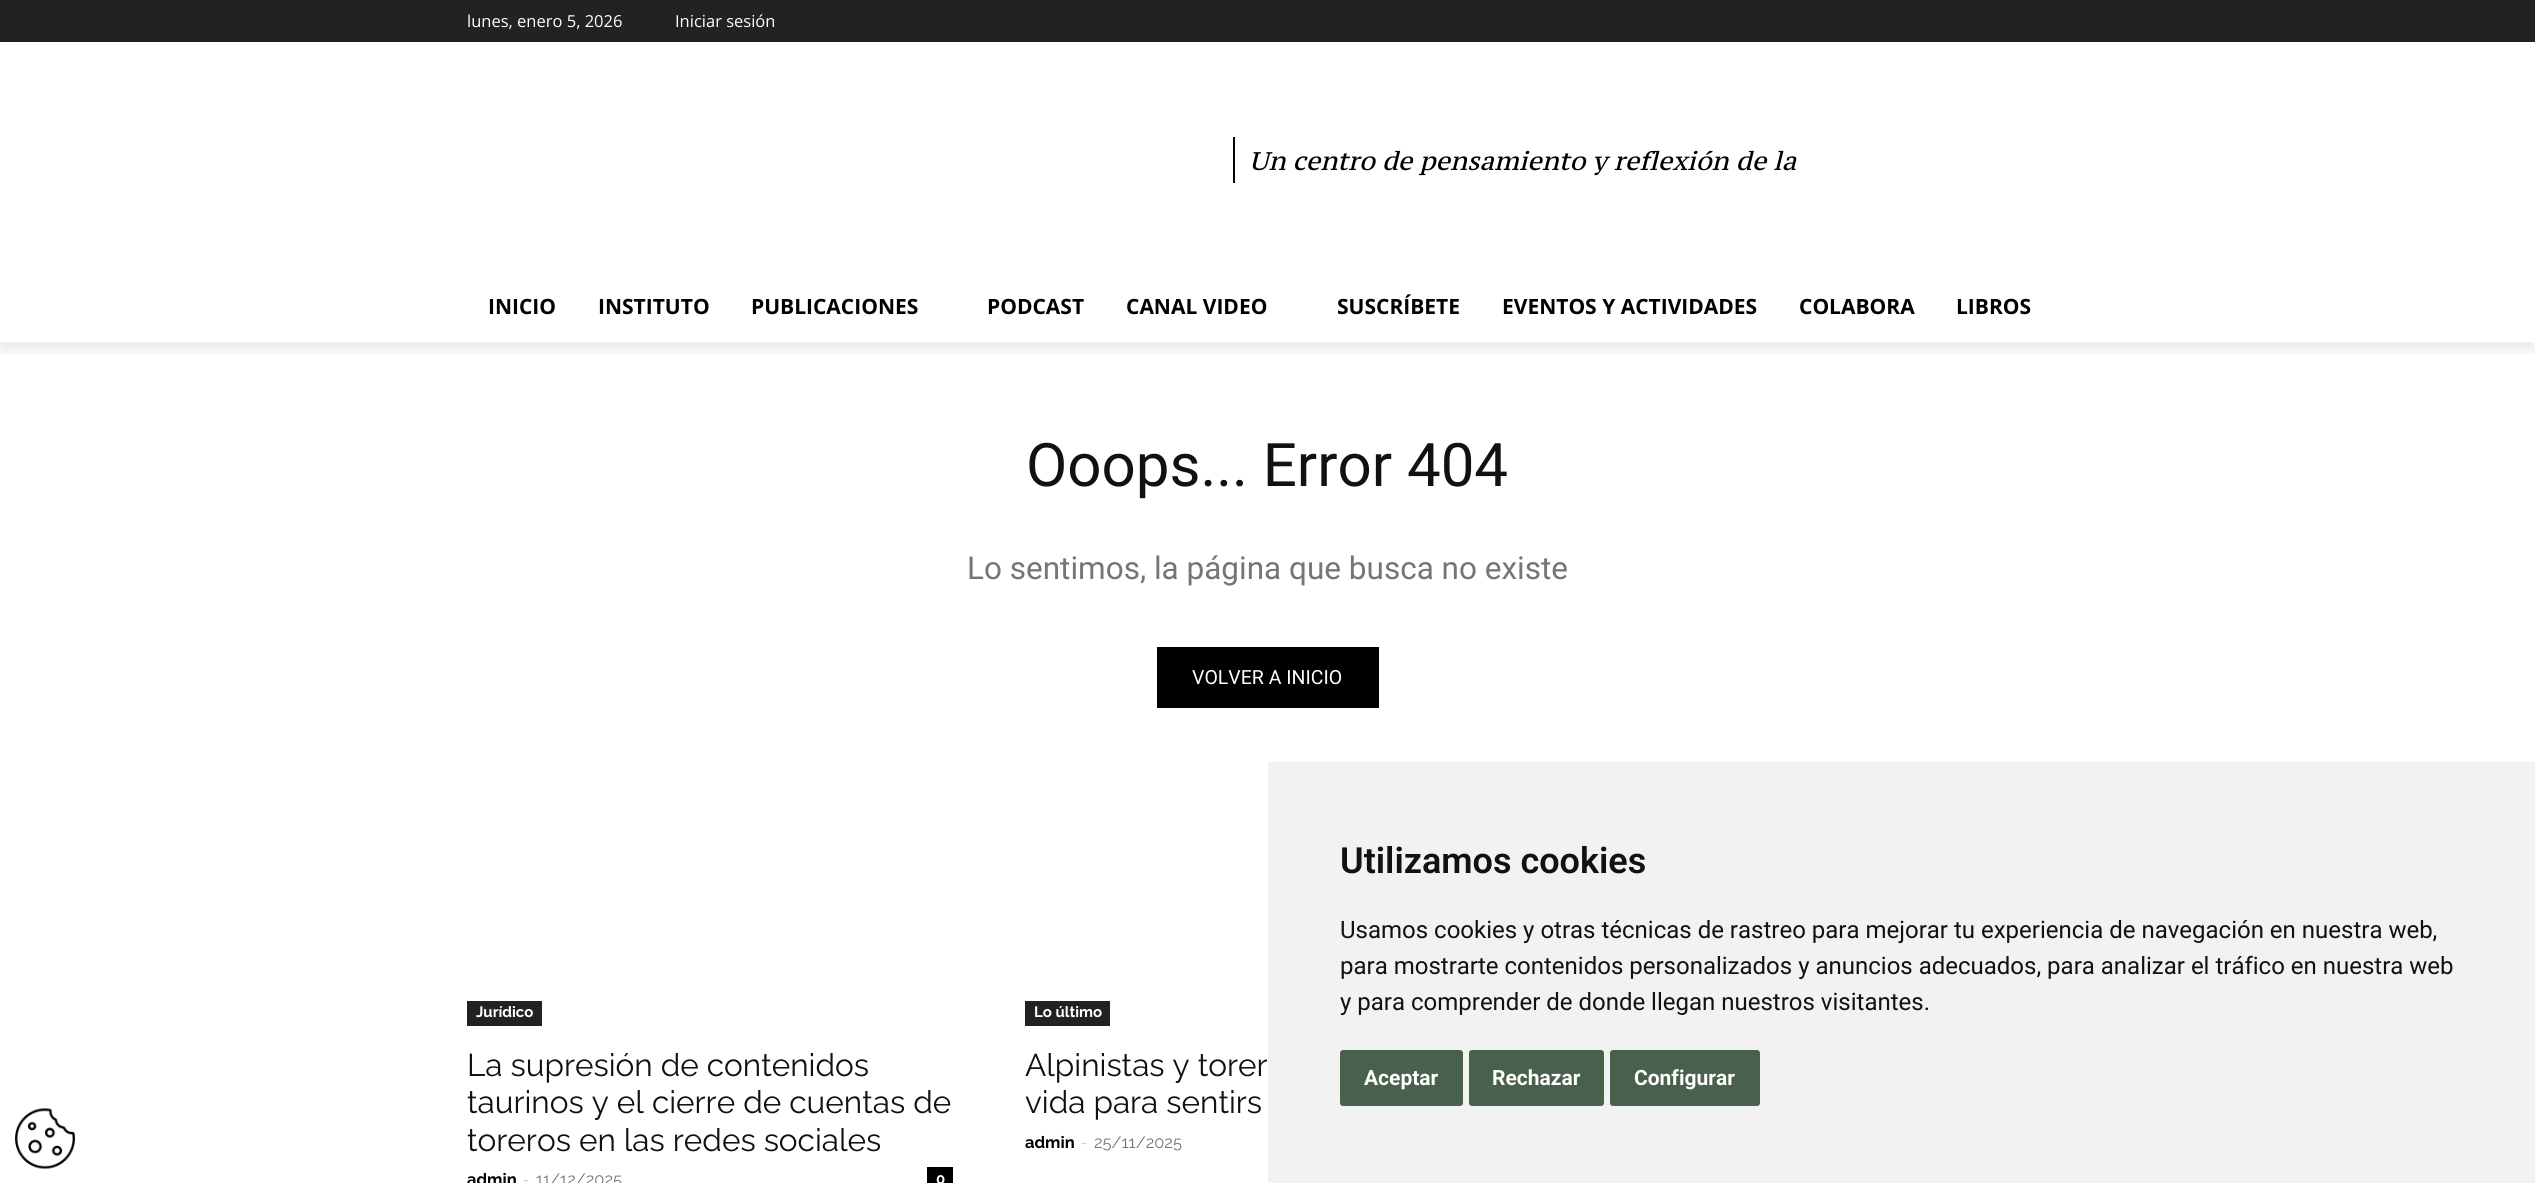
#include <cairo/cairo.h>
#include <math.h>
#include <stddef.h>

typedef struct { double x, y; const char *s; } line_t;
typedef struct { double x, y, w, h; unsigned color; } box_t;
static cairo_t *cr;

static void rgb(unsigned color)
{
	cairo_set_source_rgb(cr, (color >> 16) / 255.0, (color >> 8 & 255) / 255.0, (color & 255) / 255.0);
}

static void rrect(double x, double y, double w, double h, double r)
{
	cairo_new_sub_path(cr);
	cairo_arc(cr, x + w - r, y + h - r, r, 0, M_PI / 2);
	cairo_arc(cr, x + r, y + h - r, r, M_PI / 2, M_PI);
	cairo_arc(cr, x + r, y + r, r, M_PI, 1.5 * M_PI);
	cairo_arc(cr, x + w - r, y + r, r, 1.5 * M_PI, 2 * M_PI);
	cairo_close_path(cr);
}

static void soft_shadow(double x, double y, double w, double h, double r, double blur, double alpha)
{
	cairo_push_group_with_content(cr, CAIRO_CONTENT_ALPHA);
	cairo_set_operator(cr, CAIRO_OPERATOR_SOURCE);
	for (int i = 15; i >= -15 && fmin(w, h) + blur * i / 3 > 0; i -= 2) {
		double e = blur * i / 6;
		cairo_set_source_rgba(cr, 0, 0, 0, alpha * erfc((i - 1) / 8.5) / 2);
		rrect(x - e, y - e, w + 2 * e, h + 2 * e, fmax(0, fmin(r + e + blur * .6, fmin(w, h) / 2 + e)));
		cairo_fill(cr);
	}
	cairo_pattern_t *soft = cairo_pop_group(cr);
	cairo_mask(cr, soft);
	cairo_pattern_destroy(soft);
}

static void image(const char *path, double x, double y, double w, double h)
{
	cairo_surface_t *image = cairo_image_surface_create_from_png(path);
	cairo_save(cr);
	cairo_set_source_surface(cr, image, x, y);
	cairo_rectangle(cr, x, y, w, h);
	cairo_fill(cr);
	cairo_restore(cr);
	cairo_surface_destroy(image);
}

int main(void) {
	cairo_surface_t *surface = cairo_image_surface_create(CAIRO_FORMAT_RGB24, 2535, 1183);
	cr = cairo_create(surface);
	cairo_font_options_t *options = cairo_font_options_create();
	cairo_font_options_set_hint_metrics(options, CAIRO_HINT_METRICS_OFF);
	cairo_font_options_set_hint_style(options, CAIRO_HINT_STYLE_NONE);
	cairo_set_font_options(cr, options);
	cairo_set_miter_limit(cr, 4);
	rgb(0xffffff);
	cairo_paint(cr);
	rgb(0x222222);
	cairo_rectangle(cr, 0, 0, 2535, 42);
	cairo_fill(cr);
	rgb(0x000000);
	cairo_rectangle(cr, 1233, 137, 2, 46);
	cairo_fill(cr);
	cairo_save(cr);
	cairo_rectangle(cr, 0, 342, 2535, 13);
	cairo_clip(cr);
	rgb(0x000000);
	soft_shadow(0, 9, 2535, 342, 0, 6, 0.08);
	cairo_restore(cr);
	{
		static const box_t items[] = {
			{1157, 647, 222, 61, 0x000000},
			{467, 1001, 75, 25, 0x222222},
			{927, 1167, 26, 16, 0x000000},
			{1025, 1001, 85, 25, 0x222222},
			{1268, 762, 1267, 421, 0xf2f2f2},
		};
		for (size_t i = 0; i < sizeof items / sizeof *items; i++) {
			rgb(items[i].color);
			cairo_rectangle(cr, items[i].x, items[i].y, items[i].w, items[i].h);
			cairo_fill(cr);
		}
	}
	rgb(0x49604c);
	rrect(1340, 1050, 123, 56, 3);
	cairo_fill(cr);
	rrect(1469, 1050, 135, 56, 3);
	cairo_fill(cr);
	rrect(1610, 1050, 150, 56, 3);
	cairo_fill(cr);
	image("img/1.png", 15, 1108, 60, 61);
	cairo_select_font_face(cr, "Open Sans", CAIRO_FONT_SLANT_NORMAL, CAIRO_FONT_WEIGHT_NORMAL);
	cairo_set_font_size(cr, 16.5);
	rgb(0xffffff);
	cairo_move_to(cr, 467, 27);
	cairo_show_text(cr, "lunes, enero 5, 2026");
	cairo_move_to(cr, 675, 27);
	cairo_show_text(cr, "Iniciar sesión");
	cairo_select_font_face(cr, "PT Serif Caption", CAIRO_FONT_SLANT_ITALIC, CAIRO_FONT_WEIGHT_NORMAL);
	cairo_set_font_size(cr, 25.5);
	rgb(0x000000);
	cairo_move_to(cr, 1249, 170);
	cairo_show_text(cr, "Un centro de pensamiento y reflexión de la");
	cairo_select_font_face(cr, "Open Sans", CAIRO_FONT_SLANT_NORMAL, CAIRO_FONT_WEIGHT_BOLD);
	cairo_set_font_size(cr, 21);
	{
		static const line_t items[] = {
			{488, 314, "INICIO"},
			{598, 314, "INSTITUTO"},
			{751, 314, "PUBLICACIONES"},
			{987, 314, "PODCAST"},
			{1126, 314, "CANAL VIDEO"},
			{1337, 314, "SUSCRÍBETE"},
			{1502, 314, "EVENTOS Y ACTIVIDADES"},
			{1799, 314, "COLABORA"},
			{1956, 314, "LIBROS"},
		};
		for (size_t i = 0; i < sizeof items / sizeof *items; i++) {
			cairo_move_to(cr, items[i].x, items[i].y);
			cairo_show_text(cr, items[i].s);
		}
	}
	cairo_select_font_face(cr, "Roboto", CAIRO_FONT_SLANT_NORMAL, CAIRO_FONT_WEIGHT_NORMAL);
	cairo_set_font_size(cr, 60);
	rgb(0x111111);
	cairo_move_to(cr, 1026, 486);
	cairo_show_text(cr, "Ooops... Error 404");
	cairo_set_font_size(cr, 31.5);
	rgb(0x757575);
	cairo_move_to(cr, 967, 579);
	cairo_show_text(cr, "Lo sentimos, la página que busca no existe");
	cairo_set_font_size(cr, 19.5);
	rgb(0xffffff);
	cairo_move_to(cr, 1192, 684);
	cairo_show_text(cr, "VOLVER A INICIO");
	cairo_select_font_face(cr, "Raleway", CAIRO_FONT_SLANT_NORMAL, CAIRO_FONT_WEIGHT_BOLD);
	cairo_set_font_size(cr, 15);
	cairo_move_to(cr, 476, 1017);
	cairo_show_text(cr, "Jurídico");
	cairo_select_font_face(cr, "Raleway", CAIRO_FONT_SLANT_NORMAL, CAIRO_FONT_WEIGHT_NORMAL);
	cairo_set_font_size(cr, 31.5);
	rgb(0x111111);
	{
		static const line_t items[] = {
			{467, 1076, "La supresión de contenidos"},
			{467, 1113, "taurinos y el cierre de cuentas de"},
			{467, 1151, "toreros en las redes sociales"},
		};
		for (size_t i = 0; i < sizeof items / sizeof *items; i++) {
			cairo_move_to(cr, items[i].x, items[i].y);
			cairo_show_text(cr, items[i].s);
		}
	}
	cairo_select_font_face(cr, "Raleway", CAIRO_FONT_SLANT_NORMAL, CAIRO_FONT_WEIGHT_BOLD);
	cairo_set_font_size(cr, 16.5);
	rgb(0x000000);
	cairo_move_to(cr, 467, 1185);
	cairo_show_text(cr, "admin");
	cairo_select_font_face(cr, "Open Sans", CAIRO_FONT_SLANT_NORMAL, CAIRO_FONT_WEIGHT_NORMAL);
	rgb(0xcccccc);
	cairo_move_to(cr, 523, 1185);
	cairo_show_text(cr, "-");
	cairo_select_font_face(cr, "Raleway", CAIRO_FONT_SLANT_NORMAL, CAIRO_FONT_WEIGHT_NORMAL);
	rgb(0x757575);
	cairo_move_to(cr, 536, 1185);
	cairo_show_text(cr, "11/12/2025");
	cairo_select_font_face(cr, "Raleway", CAIRO_FONT_SLANT_NORMAL, CAIRO_FONT_WEIGHT_BOLD);
	cairo_set_font_size(cr, 15);
	rgb(0xffffff);
	cairo_move_to(cr, 936, 1184);
	cairo_show_text(cr, "0");
	cairo_move_to(cr, 1034, 1017);
	cairo_show_text(cr, "Lo último");
	cairo_select_font_face(cr, "Raleway", CAIRO_FONT_SLANT_NORMAL, CAIRO_FONT_WEIGHT_NORMAL);
	cairo_set_font_size(cr, 31.5);
	rgb(0x111111);
	cairo_move_to(cr, 1025, 1076);
	cairo_show_text(cr, "Alpinistas y torer");
	cairo_move_to(cr, 1025, 1113);
	cairo_show_text(cr, "vida para sentirs");
	cairo_select_font_face(cr, "Raleway", CAIRO_FONT_SLANT_NORMAL, CAIRO_FONT_WEIGHT_BOLD);
	cairo_set_font_size(cr, 16.5);
	rgb(0x000000);
	cairo_move_to(cr, 1025, 1148);
	cairo_show_text(cr, "admin");
	cairo_select_font_face(cr, "Open Sans", CAIRO_FONT_SLANT_NORMAL, CAIRO_FONT_WEIGHT_NORMAL);
	rgb(0xcccccc);
	cairo_move_to(cr, 1081, 1148);
	cairo_show_text(cr, "-");
	cairo_select_font_face(cr, "Raleway", CAIRO_FONT_SLANT_NORMAL, CAIRO_FONT_WEIGHT_NORMAL);
	rgb(0x757575);
	cairo_move_to(cr, 1094, 1148);
	cairo_show_text(cr, "25/11/2025");
	cairo_select_font_face(cr, "Roboto SemiBold", CAIRO_FONT_SLANT_NORMAL, CAIRO_FONT_WEIGHT_NORMAL);
	cairo_set_font_size(cr, 36);
	rgb(0x111111);
	cairo_move_to(cr, 1340, 873);
	cairo_show_text(cr, "Utilizamos cookies");
	cairo_select_font_face(cr, "Roboto", CAIRO_FONT_SLANT_NORMAL, CAIRO_FONT_WEIGHT_NORMAL);
	cairo_set_font_size(cr, 24);
	{
		static const line_t items[] = {
			{1340, 938, "Usamos cookies y otras técnicas de rastreo para mejorar tu experiencia de navegación en nuestra web,"},
			{1340, 974, "para mostrarte contenidos personalizados y anuncios adecuados, para analizar el tráfico en nuestra web"},
			{1340, 1010, "y para comprender de donde llegan nuestros visitantes."},
		};
		for (size_t i = 0; i < sizeof items / sizeof *items; i++) {
			cairo_move_to(cr, items[i].x, items[i].y);
			cairo_show_text(cr, items[i].s);
		}
	}
	cairo_select_font_face(cr, "Roboto", CAIRO_FONT_SLANT_NORMAL, CAIRO_FONT_WEIGHT_BOLD);
	cairo_set_font_size(cr, 21);
	rgb(0xffffff);
	{
		static const line_t items[] = {
			{1364, 1085, "Aceptar"},
			{1492, 1085, "Rechazar"},
			{1634, 1085, "Configurar"},
		};
		for (size_t i = 0; i < sizeof items / sizeof *items; i++) {
			cairo_move_to(cr, items[i].x, items[i].y);
			cairo_show_text(cr, items[i].s);
		}
	}
	cairo_surface_write_to_png(surface, "page.png");
	cairo_font_options_destroy(options);
	cairo_destroy(cr);
	cairo_surface_destroy(surface);
	return 0;
}
